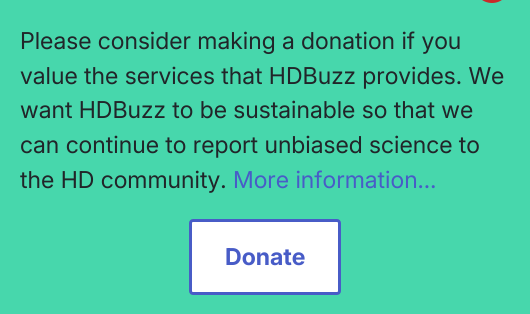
#include <cairo/cairo.h>
#include <math.h>
#include <stddef.h>

typedef struct { double x, y; const char *s; } line_t;
static cairo_t *cr;

static void rgb(unsigned color)
{
	cairo_set_source_rgb(cr, (color >> 16) / 255.0, (color >> 8 & 255) / 255.0, (color & 255) / 255.0);
}

static void rrect(double x, double y, double w, double h, double r)
{
	cairo_new_sub_path(cr);
	cairo_arc(cr, x + w - r, y + h - r, r, 0, M_PI / 2);
	cairo_arc(cr, x + r, y + h - r, r, M_PI / 2, M_PI);
	cairo_arc(cr, x + r, y + r, r, M_PI, 1.5 * M_PI);
	cairo_arc(cr, x + w - r, y + r, r, 1.5 * M_PI, 2 * M_PI);
	cairo_close_path(cr);
}

int main(void) {
	cairo_surface_t *surface = cairo_image_surface_create(CAIRO_FORMAT_RGB24, 530, 314);
	cr = cairo_create(surface);
	cairo_font_options_t *options = cairo_font_options_create();
	cairo_font_options_set_hint_metrics(options, CAIRO_HINT_METRICS_OFF);
	cairo_font_options_set_hint_style(options, CAIRO_HINT_STYLE_NONE);
	cairo_set_font_options(cr, options);
	cairo_set_miter_limit(cr, 4);
	rgb(0x47d7ac);
	cairo_paint(cr);
	rrect(475.5, -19.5, 33, 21, 16.5);
	rgb(0xc92a2a);
	cairo_set_line_width(cr, 3);
	cairo_stroke(cr);
	rgb(0xffffff);
	rrect(190.5, 220.5, 149, 73, 2.5);
	cairo_fill_preserve(cr);
	rgb(0x485cc7);
	cairo_stroke(cr);
	cairo_select_font_face(cr, "Inter", CAIRO_FONT_SLANT_NORMAL, CAIRO_FONT_WEIGHT_NORMAL);
	cairo_set_font_size(cr, 23.25);
	rgb(0x212529);
	{
		static const line_t items[] = {
			{20, 49, "Please consider making a donation if you"},
			{20, 84, "value the services that HDBuzz provides. We"},
			{20, 118, "want HDBuzz to be sustainable so that we"},
			{20, 153, "can continue to report unbiased science to"},
			{20, 188, "the HD community."},
		};
		for (size_t i = 0; i < sizeof items / sizeof *items; i++) {
			cairo_move_to(cr, items[i].x, items[i].y);
			cairo_show_text(cr, items[i].s);
		}
	}
	rgb(0x485cc7);
	cairo_move_to(cr, 233, 188);
	cairo_show_text(cr, "More information…");
	cairo_select_font_face(cr, "Inter", CAIRO_FONT_SLANT_NORMAL, CAIRO_FONT_WEIGHT_BOLD);
	cairo_move_to(cr, 225, 265);
	cairo_show_text(cr, "Donate");
	cairo_surface_write_to_png(surface, "page.png");
	cairo_font_options_destroy(options);
	cairo_destroy(cr);
	cairo_surface_destroy(surface);
	return 0;
}
